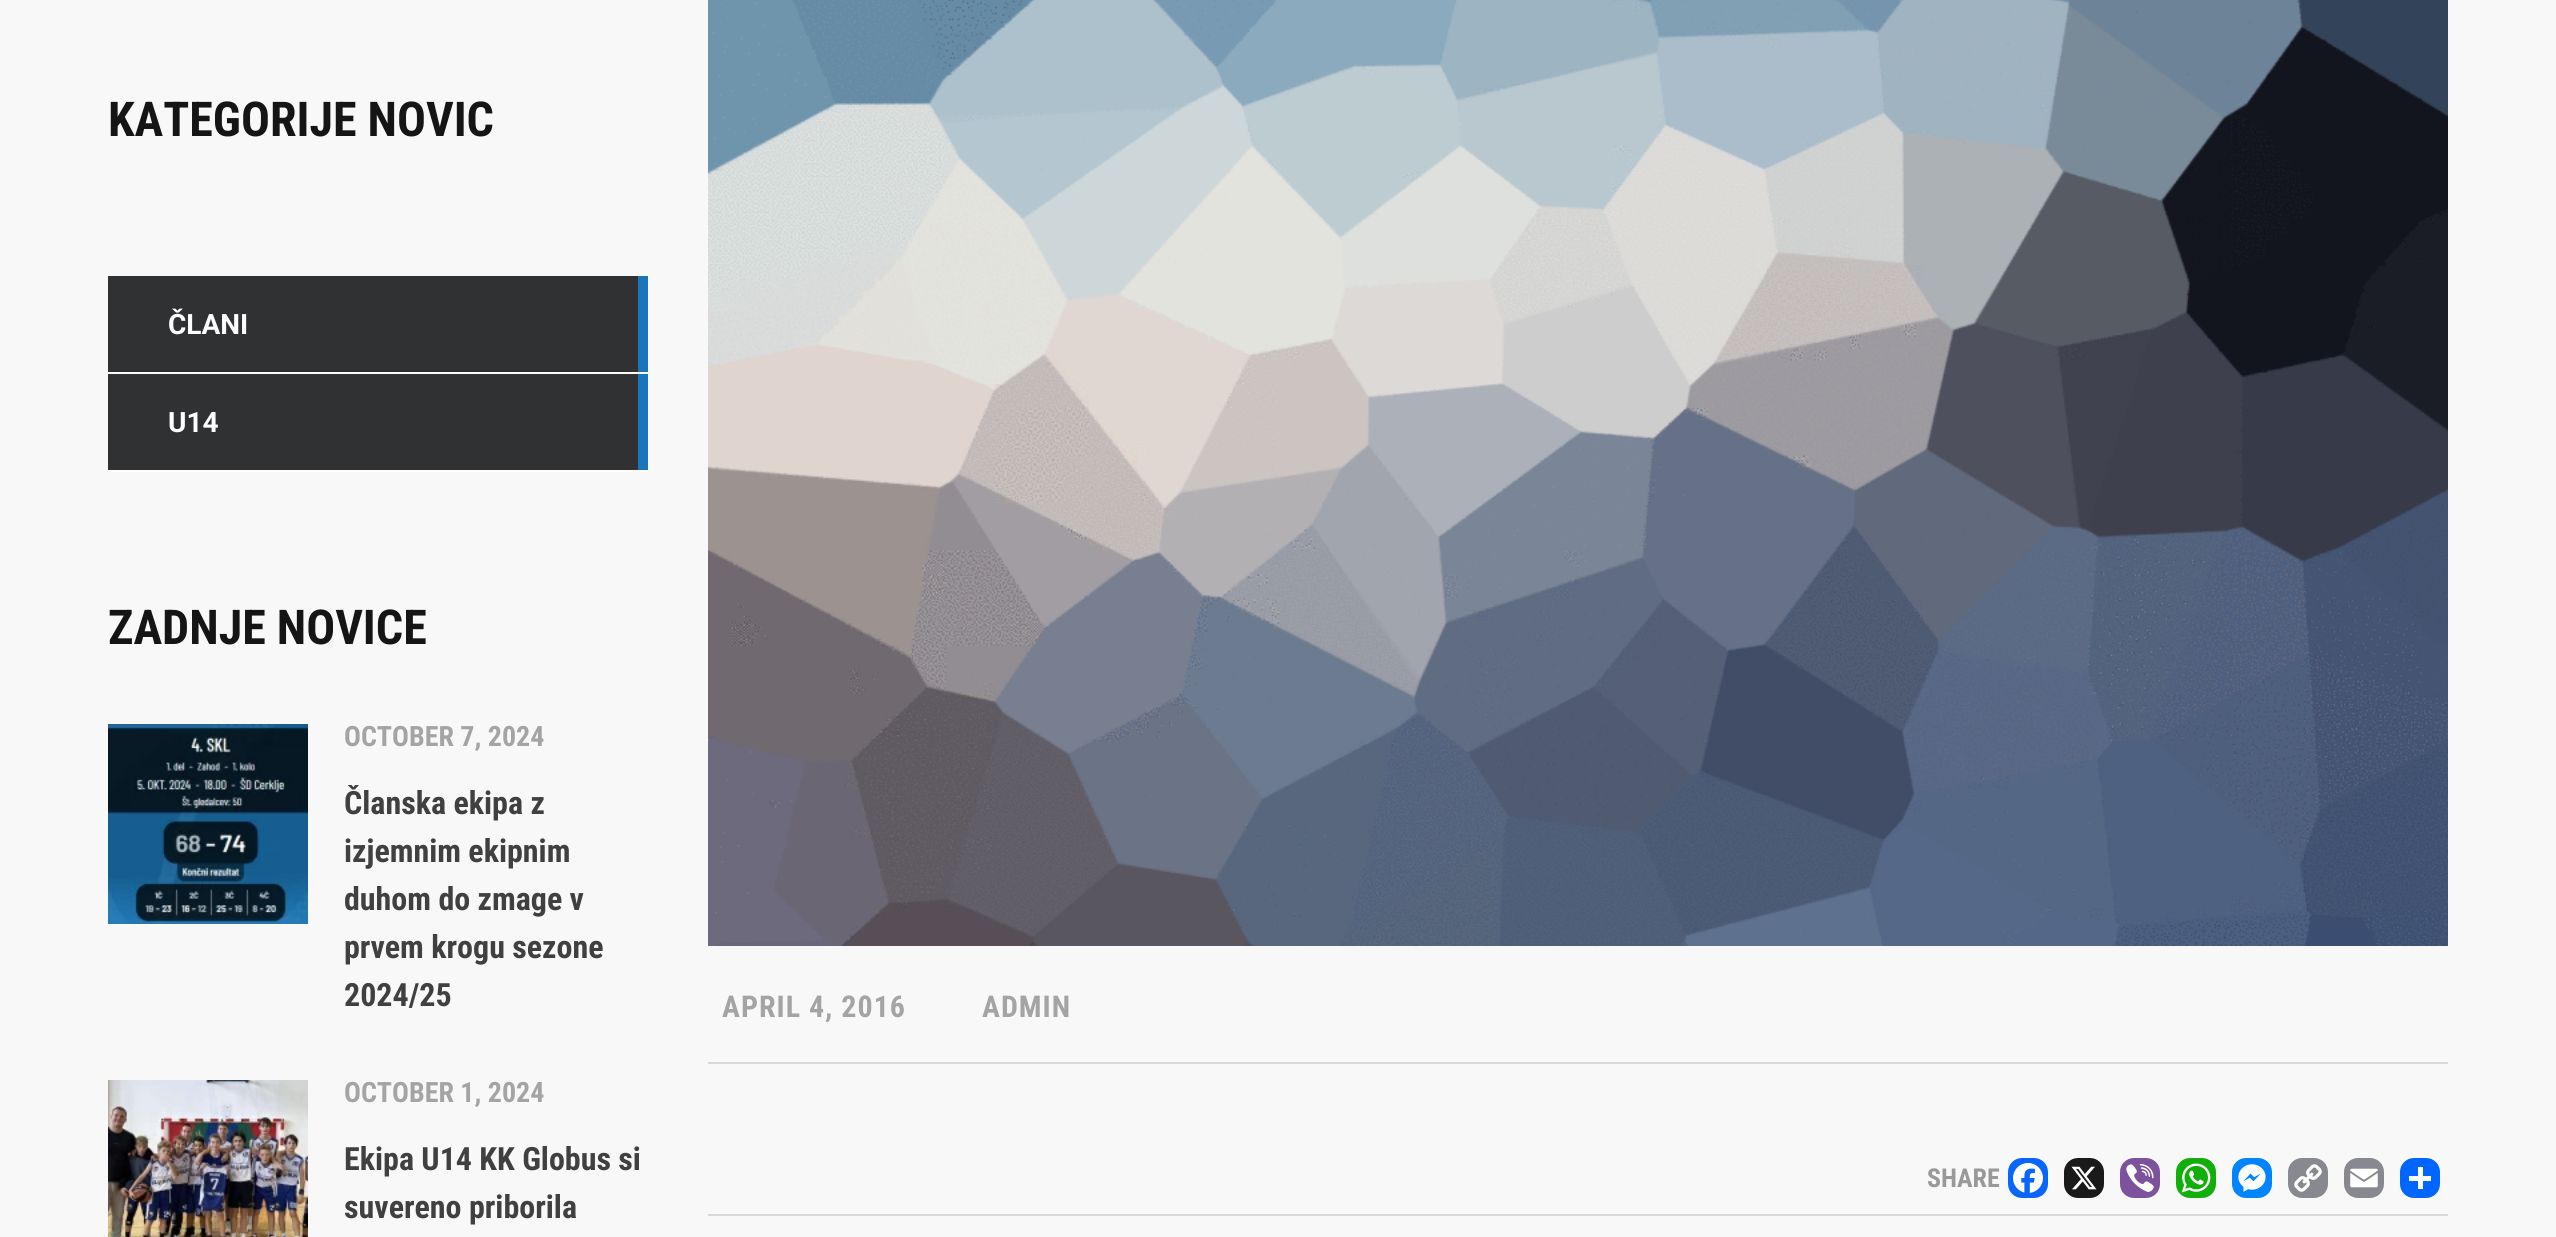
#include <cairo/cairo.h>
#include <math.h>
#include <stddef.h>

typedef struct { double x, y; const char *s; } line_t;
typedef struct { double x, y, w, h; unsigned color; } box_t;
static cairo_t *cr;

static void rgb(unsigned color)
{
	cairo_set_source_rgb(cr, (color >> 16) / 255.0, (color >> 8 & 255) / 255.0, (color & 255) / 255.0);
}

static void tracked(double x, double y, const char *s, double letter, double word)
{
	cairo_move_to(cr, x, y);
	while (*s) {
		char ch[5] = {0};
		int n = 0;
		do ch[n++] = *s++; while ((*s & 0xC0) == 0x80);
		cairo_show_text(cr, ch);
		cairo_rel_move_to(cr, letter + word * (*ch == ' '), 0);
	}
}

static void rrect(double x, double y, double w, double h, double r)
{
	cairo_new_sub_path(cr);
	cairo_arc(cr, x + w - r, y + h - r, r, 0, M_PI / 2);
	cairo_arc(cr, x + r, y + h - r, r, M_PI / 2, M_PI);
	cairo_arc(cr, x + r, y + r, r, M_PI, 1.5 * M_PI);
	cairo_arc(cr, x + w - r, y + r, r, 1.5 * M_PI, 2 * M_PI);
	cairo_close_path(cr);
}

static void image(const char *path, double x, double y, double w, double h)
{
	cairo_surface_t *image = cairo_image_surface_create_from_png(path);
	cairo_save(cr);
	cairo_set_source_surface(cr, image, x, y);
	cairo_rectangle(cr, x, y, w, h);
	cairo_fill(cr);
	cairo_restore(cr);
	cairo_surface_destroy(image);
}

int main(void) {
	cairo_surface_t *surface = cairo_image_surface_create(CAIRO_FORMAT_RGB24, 2556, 1237);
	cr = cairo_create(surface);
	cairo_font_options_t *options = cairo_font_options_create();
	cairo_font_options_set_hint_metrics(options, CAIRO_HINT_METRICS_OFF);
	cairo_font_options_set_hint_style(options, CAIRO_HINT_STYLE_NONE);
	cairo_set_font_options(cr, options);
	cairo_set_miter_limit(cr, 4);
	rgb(0xf8f8f8);
	cairo_paint(cr);
	{
		static const box_t items[] = {
			{108, 276, 530, 96, 0x303132},
			{108, 372, 540, 2, 0xffffff},
			{638, 276, 10, 96, 0x1b75bb},
			{108, 374, 530, 96, 0x303132},
			{108, 470, 540, 2, 0xffffff},
			{638, 374, 10, 96, 0x1b75bb},
		};
		for (size_t i = 0; i < sizeof items / sizeof *items; i++) {
			rgb(items[i].color);
			cairo_rectangle(cr, items[i].x, items[i].y, items[i].w, items[i].h);
			cairo_fill(cr);
		}
	}
	image("img/1.png", 108, 724, 200, 200);
	image("img/2.png", 108, 1080, 200, 157);
	image("img/3.png", 708, 0, 1740, 946);
	rgb(0xd9d9d9);
	cairo_rectangle(cr, 708, 1062, 1740, 2);
	cairo_fill(cr);
	cairo_rectangle(cr, 708, 1214, 1740, 2);
	cairo_fill(cr);
	rgb(0x0866ff);
	rrect(2008, 1158, 40, 40, 14);
	cairo_fill(cr);
	image("img/4.png", 2013, 1163, 30, 30);
	rgb(0x1a1a1a);
	rrect(2064, 1158, 40, 40, 14);
	cairo_fill(cr);
	image("img/5.png", 2071, 1166, 26, 24);
	rgb(0x7c529e);
	rrect(2120, 1158, 40, 40, 14);
	cairo_fill(cr);
	image("img/6.png", 2126, 1164, 28, 28);
	rgb(0x12af0a);
	rrect(2176, 1158, 40, 40, 14);
	cairo_fill(cr);
	image("img/7.png", 2181, 1163, 30, 30);
	rgb(0x0084ff);
	rrect(2232, 1158, 40, 40, 14);
	cairo_fill(cr);
	image("img/8.png", 2238, 1164, 28, 28);
	rgb(0x888990);
	rrect(2288, 1158, 40, 40, 14);
	cairo_fill(cr);
	image("img/9.png", 2294, 1164, 28, 28);
	rrect(2344, 1158, 40, 40, 14);
	cairo_fill(cr);
	image("img/10.png", 2350, 1168, 28, 20);
	rgb(0x0166ff);
	rrect(2400, 1158, 40, 40, 14);
	cairo_fill(cr);
	rgb(0xffffff);
	cairo_rectangle(cr, 2418, 1167, 5, 22);
	cairo_fill(cr);
	cairo_rectangle(cr, 2409, 1176, 22, 5);
	cairo_fill(cr);
	cairo_select_font_face(cr, "Roboto Condensed", CAIRO_FONT_SLANT_NORMAL, CAIRO_FONT_WEIGHT_BOLD);
	cairo_set_font_size(cr, 48);
	rgb(0x151515);
	cairo_move_to(cr, 108, 136);
	cairo_show_text(cr, "KATEGORIJE NOVIC");
	cairo_select_font_face(cr, "Roboto", CAIRO_FONT_SLANT_NORMAL, CAIRO_FONT_WEIGHT_BOLD);
	cairo_set_font_size(cr, 28);
	rgb(0xffffff);
	cairo_move_to(cr, 168, 334);
	cairo_show_text(cr, "ČLANI");
	cairo_move_to(cr, 168, 432);
	cairo_show_text(cr, "U14");
	cairo_select_font_face(cr, "Roboto Condensed", CAIRO_FONT_SLANT_NORMAL, CAIRO_FONT_WEIGHT_BOLD);
	cairo_set_font_size(cr, 48);
	rgb(0x151515);
	cairo_move_to(cr, 108, 644);
	cairo_show_text(cr, "ZADNJE NOVICE");
	cairo_set_font_size(cr, 28);
	rgb(0xa4a4a4);
	cairo_move_to(cr, 344, 746);
	cairo_show_text(cr, "OCTOBER 7, 2024");
	cairo_set_font_size(cr, 32);
	rgb(0x404040);
	{
		static const line_t items[] = {
			{344, 814, "Članska ekipa z"},
			{344, 862, "izjemnim ekipnim"},
			{344, 910, "duhom do zmage v"},
			{344, 958, "prvem krogu sezone"},
			{344, 1006, "2024/25"},
		};
		for (size_t i = 0; i < sizeof items / sizeof *items; i++) {
			cairo_move_to(cr, items[i].x, items[i].y);
			cairo_show_text(cr, items[i].s);
		}
	}
	cairo_set_font_size(cr, 28);
	rgb(0xa4a4a4);
	cairo_move_to(cr, 344, 1102);
	cairo_show_text(cr, "OCTOBER 1, 2024");
	cairo_set_font_size(cr, 32);
	rgb(0x404040);
	cairo_move_to(cr, 344, 1170);
	cairo_show_text(cr, "Ekipa U14 KK Globus si");
	cairo_move_to(cr, 344, 1218);
	cairo_show_text(cr, "suvereno priborila");
	cairo_set_font_size(cr, 30);
	rgb(0xa4a4a4);
	tracked(722, 1017, "APRIL 4, 2016", 1, 0);
	tracked(982, 1017, "ADMIN", 1, 0);
	cairo_set_font_size(cr, 26);
	rgb(0x999999);
	cairo_move_to(cr, 1927, 1187);
	cairo_show_text(cr, "SHARE");
	cairo_surface_write_to_png(surface, "page.png");
	cairo_font_options_destroy(options);
	cairo_destroy(cr);
	cairo_surface_destroy(surface);
	return 0;
}
